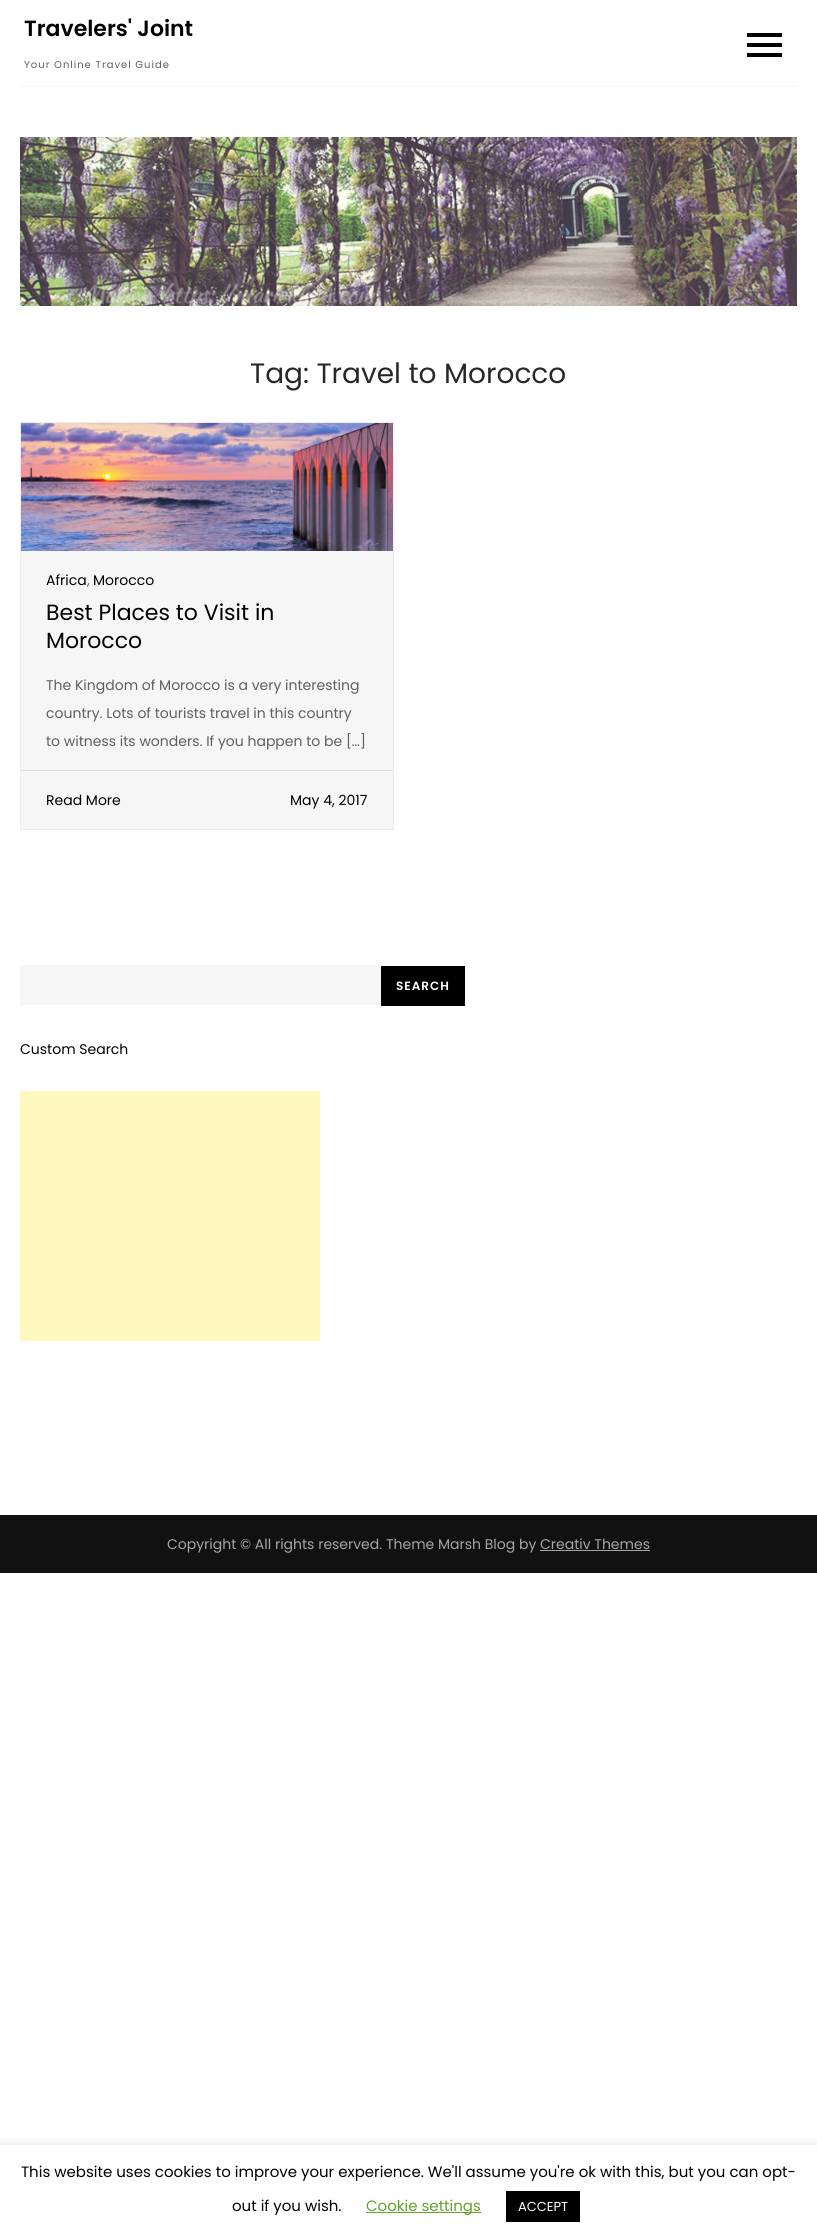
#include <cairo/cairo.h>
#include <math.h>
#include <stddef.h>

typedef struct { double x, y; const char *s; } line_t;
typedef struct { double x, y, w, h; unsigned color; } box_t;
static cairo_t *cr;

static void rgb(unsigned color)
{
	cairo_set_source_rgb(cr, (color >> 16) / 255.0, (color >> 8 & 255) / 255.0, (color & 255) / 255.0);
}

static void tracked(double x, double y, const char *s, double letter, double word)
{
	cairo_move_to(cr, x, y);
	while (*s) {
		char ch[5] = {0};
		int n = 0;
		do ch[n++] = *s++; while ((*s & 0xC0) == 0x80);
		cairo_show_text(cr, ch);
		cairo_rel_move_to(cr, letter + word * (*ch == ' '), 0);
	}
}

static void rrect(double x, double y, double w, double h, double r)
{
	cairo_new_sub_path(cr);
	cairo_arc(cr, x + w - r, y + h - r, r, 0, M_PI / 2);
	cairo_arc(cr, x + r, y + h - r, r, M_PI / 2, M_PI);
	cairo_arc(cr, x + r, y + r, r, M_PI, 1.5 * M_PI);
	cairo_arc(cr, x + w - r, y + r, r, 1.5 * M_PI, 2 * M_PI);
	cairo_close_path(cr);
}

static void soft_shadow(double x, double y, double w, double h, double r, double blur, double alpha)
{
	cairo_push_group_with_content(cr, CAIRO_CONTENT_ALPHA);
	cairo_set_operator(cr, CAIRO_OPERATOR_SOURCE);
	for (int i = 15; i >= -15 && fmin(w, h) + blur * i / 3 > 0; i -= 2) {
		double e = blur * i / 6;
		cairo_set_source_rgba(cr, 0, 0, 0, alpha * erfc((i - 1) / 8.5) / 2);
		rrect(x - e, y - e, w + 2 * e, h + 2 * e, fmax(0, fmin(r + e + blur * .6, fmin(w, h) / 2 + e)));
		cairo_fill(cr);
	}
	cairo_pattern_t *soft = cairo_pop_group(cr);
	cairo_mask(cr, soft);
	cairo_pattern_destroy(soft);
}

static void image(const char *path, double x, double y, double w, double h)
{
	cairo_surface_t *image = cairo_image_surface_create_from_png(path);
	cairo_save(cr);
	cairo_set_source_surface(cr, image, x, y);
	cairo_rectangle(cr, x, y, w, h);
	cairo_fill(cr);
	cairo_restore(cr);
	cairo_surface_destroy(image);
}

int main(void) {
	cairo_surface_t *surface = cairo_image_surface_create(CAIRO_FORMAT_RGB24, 817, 2239);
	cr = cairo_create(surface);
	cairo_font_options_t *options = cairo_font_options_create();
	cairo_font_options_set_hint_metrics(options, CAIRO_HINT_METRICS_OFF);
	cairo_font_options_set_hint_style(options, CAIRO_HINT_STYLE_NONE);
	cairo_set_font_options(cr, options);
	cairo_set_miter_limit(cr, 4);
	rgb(0xffffff);
	cairo_paint(cr);
	{
		static const box_t items[] = {
			{20, 86, 777, 1, 0xf5f5f5},
			{747, 43, 35, 4, 0x000000},
			{747, 33, 35, 4, 0x000000},
			{747, 53, 35, 4, 0x000000},
		};
		for (size_t i = 0; i < sizeof items / sizeof *items; i++) {
			rgb(items[i].color);
			cairo_rectangle(cr, items[i].x, items[i].y, items[i].w, items[i].h);
			cairo_fill(cr);
		}
	}
	image("img/1.png", 20, 137, 777, 169);
	rgb(0xf6f6f6);
	cairo_rectangle(cr, 21, 551, 372, 278);
	cairo_fill(cr);
	cairo_rectangle(cr, 20.5, 422.5, 373, 407);
	rgb(0xeeeeee);
	cairo_set_line_width(cr, 1);
	cairo_stroke(cr);
	image("img/2.png", 21, 423, 372, 128);
	{
		static const box_t items[] = {
			{21, 770, 372, 1, 0xdddddd},
			{20, 965, 361, 40, 0xf6f6f6},
			{381, 966, 84, 40, 0x000000},
			{20, 1091, 300, 250, 0xfff9c0},
			{0, 1515, 817, 58, 0x111111},
			{540, 1550, 110, 1, 0xa7a7a7},
		};
		for (size_t i = 0; i < sizeof items / sizeof *items; i++) {
			rgb(items[i].color);
			cairo_rectangle(cr, items[i].x, items[i].y, items[i].w, items[i].h);
			cairo_fill(cr);
		}
	}
	cairo_save(cr);
	cairo_rectangle(cr, 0, 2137, 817, 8);
	cairo_clip(cr);
	rgb(0xacabab);
	soft_shadow(0, 2144, 817, 94, 0, 5, 0.3);
	cairo_restore(cr);
	rgb(0x62a329);
	cairo_rectangle(cr, 366, 2212, 115, 1);
	cairo_fill(cr);
	rgb(0x000000);
	cairo_rectangle(cr, 506, 2191, 74, 31);
	cairo_fill(cr);
	cairo_select_font_face(cr, "Poppins SemiBold", CAIRO_FONT_SLANT_NORMAL, CAIRO_FONT_WEIGHT_NORMAL);
	cairo_set_font_size(cr, 22);
	cairo_move_to(cr, 24, 36);
	cairo_show_text(cr, "Travelers' Joint");
	cairo_select_font_face(cr, "Poppins", CAIRO_FONT_SLANT_NORMAL, CAIRO_FONT_WEIGHT_NORMAL);
	cairo_set_font_size(cr, 10);
	rgb(0x5e5e5e);
	tracked(24, 68, "Your Online Travel Guide", 1, 0);
	cairo_set_font_size(cr, 28);
	rgb(0x282828);
	cairo_move_to(cr, 250, 383);
	cairo_show_text(cr, "Tag: Travel to Morocco");
	cairo_set_font_size(cr, 14);
	rgb(0x000000);
	cairo_move_to(cr, 46, 585);
	cairo_show_text(cr, "Africa");
	rgb(0x5e5e5e);
	cairo_move_to(cr, 87, 585);
	cairo_show_text(cr, ",");
	rgb(0x000000);
	cairo_move_to(cr, 93, 585);
	cairo_show_text(cr, "Morocco");
	cairo_set_font_size(cr, 22);
	cairo_move_to(cr, 46, 620);
	cairo_show_text(cr, "Best Places to Visit in");
	cairo_move_to(cr, 46, 648);
	cairo_show_text(cr, "Morocco");
	cairo_set_font_size(cr, 14);
	rgb(0x5e5e5e);
	{
		static const line_t items[] = {
			{46, 690, "The Kingdom of Morocco is a very interesting"},
			{46, 718, "country. Lots of tourists travel in this country"},
			{46, 746, "to witness its wonders. If you happen to be […]"},
		};
		for (size_t i = 0; i < sizeof items / sizeof *items; i++) {
			cairo_move_to(cr, items[i].x, items[i].y);
			cairo_show_text(cr, items[i].s);
		}
	}
	rgb(0x000000);
	cairo_move_to(cr, 46, 805);
	cairo_show_text(cr, "Read More");
	cairo_move_to(cr, 290, 805);
	cairo_show_text(cr, "May 4, 2017");
	cairo_select_font_face(cr, "Poppins SemiBold", CAIRO_FONT_SLANT_NORMAL, CAIRO_FONT_WEIGHT_NORMAL);
	cairo_set_font_size(cr, 12);
	rgb(0xffffff);
	tracked(396, 990, "SEARCH", 1, 0);
	cairo_select_font_face(cr, "Poppins", CAIRO_FONT_SLANT_NORMAL, CAIRO_FONT_WEIGHT_NORMAL);
	cairo_set_font_size(cr, 14);
	rgb(0x000000);
	cairo_move_to(cr, 20, 1054);
	cairo_show_text(cr, "Custom Search");
	rgb(0xa7a7a7);
	cairo_move_to(cr, 167, 1549);
	cairo_show_text(cr, "Copyright © All rights reserved. Theme Marsh Blog by Creativ Themes");
	cairo_set_font_size(cr, 15);
	rgb(0x000000);
	cairo_move_to(cr, 21, 2177);
	cairo_show_text(cr, "This website uses cookies to improve your experience. We'll assume you're ok with this, but you can opt-");
	cairo_move_to(cr, 232, 2211);
	cairo_show_text(cr, "out if you wish.");
	rgb(0x62a329);
	cairo_move_to(cr, 366, 2211);
	cairo_show_text(cr, "Cookie settings");
	cairo_set_font_size(cr, 13);
	rgb(0xffffff);
	cairo_move_to(cr, 518, 2211);
	cairo_show_text(cr, "ACCEPT");
	cairo_surface_write_to_png(surface, "page.png");
	cairo_font_options_destroy(options);
	cairo_destroy(cr);
	cairo_surface_destroy(surface);
	return 0;
}
